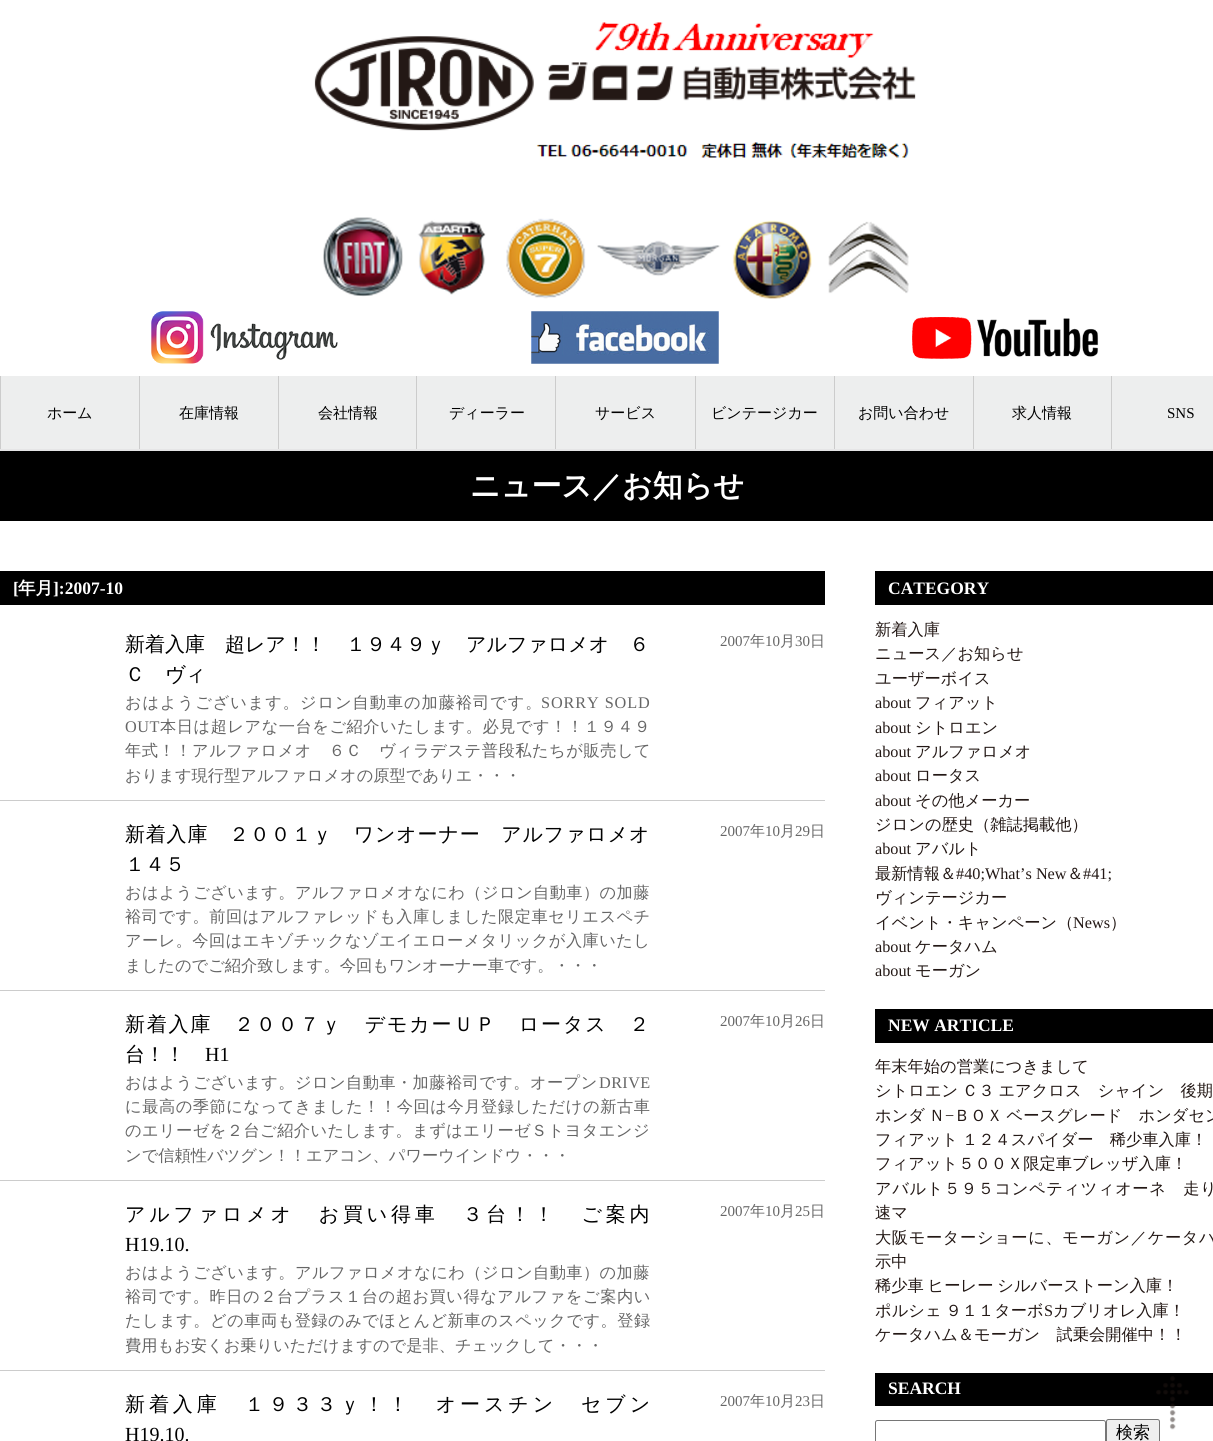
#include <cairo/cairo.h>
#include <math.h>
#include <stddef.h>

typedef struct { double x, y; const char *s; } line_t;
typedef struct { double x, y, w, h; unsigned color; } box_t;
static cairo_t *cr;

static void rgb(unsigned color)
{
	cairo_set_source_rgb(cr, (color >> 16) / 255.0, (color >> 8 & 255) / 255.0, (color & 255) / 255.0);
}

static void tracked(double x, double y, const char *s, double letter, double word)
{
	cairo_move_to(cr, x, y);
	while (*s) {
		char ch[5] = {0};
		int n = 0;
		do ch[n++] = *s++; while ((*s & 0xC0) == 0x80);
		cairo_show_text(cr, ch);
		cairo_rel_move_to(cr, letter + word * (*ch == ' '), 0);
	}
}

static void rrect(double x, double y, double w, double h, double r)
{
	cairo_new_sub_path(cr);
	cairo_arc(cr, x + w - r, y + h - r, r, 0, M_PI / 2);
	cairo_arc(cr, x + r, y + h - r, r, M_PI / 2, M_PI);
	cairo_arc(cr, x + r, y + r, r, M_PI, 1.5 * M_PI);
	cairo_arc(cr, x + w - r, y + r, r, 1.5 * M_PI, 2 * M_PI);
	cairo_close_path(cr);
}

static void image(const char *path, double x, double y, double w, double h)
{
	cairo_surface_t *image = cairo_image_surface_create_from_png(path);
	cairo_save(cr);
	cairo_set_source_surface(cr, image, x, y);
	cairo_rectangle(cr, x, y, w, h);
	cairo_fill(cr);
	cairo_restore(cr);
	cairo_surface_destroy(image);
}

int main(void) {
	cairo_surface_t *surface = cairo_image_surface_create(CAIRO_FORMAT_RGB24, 1213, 1441);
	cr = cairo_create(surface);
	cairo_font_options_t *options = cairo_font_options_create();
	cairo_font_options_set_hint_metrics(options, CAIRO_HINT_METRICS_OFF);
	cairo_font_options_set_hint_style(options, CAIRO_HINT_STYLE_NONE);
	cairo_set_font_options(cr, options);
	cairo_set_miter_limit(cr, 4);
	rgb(0xffffff);
	cairo_paint(cr);
	image("img/1.png", 314, 22, 602, 136);
	image("img/2.png", 323, 217, 586, 82);
	image("img/3.png", 151, 311, 187, 53);
	image("img/4.png", 531, 311, 188, 53);
	image("img/5.png", 912, 317, 187, 42);
	{
		static const box_t items[] = {
			{1, 376, 1212, 73, 0xedeeee},
			{0, 449, 1213, 2, 0xe5e5e6},
			{0, 376, 1, 73, 0xcccccc},
			{139, 376, 1, 73, 0xcccccc},
			{278, 376, 1, 73, 0xcccccc},
			{416, 376, 1, 73, 0xcccccc},
			{555, 376, 1, 73, 0xcccccc},
			{695, 376, 1, 73, 0xcccccc},
			{834, 376, 1, 73, 0xcccccc},
			{973, 376, 1, 73, 0xcccccc},
			{1111, 376, 1, 73, 0xcccccc},
			{0, 451, 1213, 70, 0x000000},
			{0, 571, 825, 34, 0x000000},
			{0, 800, 825, 1, 0xcccccc},
			{0, 990, 825, 1, 0xcccccc},
			{0, 1180, 825, 1, 0xcccccc},
			{0, 1370, 825, 1, 0xcccccc},
			{875, 571, 338, 34, 0x000000},
			{875, 1009, 338, 34, 0x000000},
			{875, 1373, 338, 33, 0x000000},
		};
		for (size_t i = 0; i < sizeof items / sizeof *items; i++) {
			rgb(items[i].color);
			cairo_rectangle(cr, items[i].x, items[i].y, items[i].w, items[i].h);
			cairo_fill(cr);
		}
	}
	rrect(875.5, 1420.5, 230, 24, 2);
	rgb(0x767676);
	cairo_set_line_width(cr, 1);
	cairo_stroke(cr);
	rgb(0xefefef);
	rrect(1106.5, 1419.5, 53, 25, 2);
	cairo_fill_preserve(cr);
	rgb(0x767676);
	cairo_stroke(cr);
	image("img/6.png", 1156, 1376, 33, 54);
	cairo_select_font_face(cr, "WenQuanYi Zen Hei Medium", CAIRO_FONT_SLANT_NORMAL, CAIRO_FONT_WEIGHT_NORMAL);
	cairo_set_font_size(cr, 15);
	rgb(0x000000);
	{
		static const line_t items[] = {
			{47, 418, "ホーム"},
			{179, 418, "在庫情報"},
			{318, 418, "会社情報"},
			{449, 418, "ディーラー"},
			{595, 418, "サービス"},
			{711, 418, "ビンテージカー"},
			{858, 418, "お問い合わせ"},
			{1012, 418, "求人情報"},
		};
		for (size_t i = 0; i < sizeof items / sizeof *items; i++) {
			cairo_move_to(cr, items[i].x, items[i].y);
			cairo_show_text(cr, items[i].s);
		}
	}
	cairo_select_font_face(cr, "Liberation Serif", CAIRO_FONT_SLANT_NORMAL, CAIRO_FONT_WEIGHT_NORMAL);
	cairo_move_to(cr, 1167, 418);
	cairo_show_text(cr, "SNS");
	cairo_select_font_face(cr, "WenQuanYi Zen Hei", CAIRO_FONT_SLANT_NORMAL, CAIRO_FONT_WEIGHT_BOLD);
	cairo_set_font_size(cr, 30);
	rgb(0xffffff);
	cairo_move_to(cr, 470, 496);
	cairo_show_text(cr, "ニュース／お知らせ");
	cairo_select_font_face(cr, "Liberation Serif", CAIRO_FONT_SLANT_NORMAL, CAIRO_FONT_WEIGHT_BOLD);
	cairo_set_font_size(cr, 17.5);
	cairo_move_to(cr, 13, 594);
	cairo_show_text(cr, "[");
	cairo_select_font_face(cr, "WenQuanYi Zen Hei", CAIRO_FONT_SLANT_NORMAL, CAIRO_FONT_WEIGHT_BOLD);
	cairo_move_to(cr, 18, 594);
	cairo_show_text(cr, "年月");
	cairo_select_font_face(cr, "Liberation Serif", CAIRO_FONT_SLANT_NORMAL, CAIRO_FONT_WEIGHT_BOLD);
	cairo_move_to(cr, 53, 594);
	cairo_show_text(cr, "]:2007-10");
	cairo_select_font_face(cr, "WenQuanYi Zen Hei Medium", CAIRO_FONT_SLANT_NORMAL, CAIRO_FONT_WEIGHT_NORMAL);
	cairo_set_font_size(cr, 20);
	rgb(0x000000);
	cairo_move_to(cr, 125, 651);
	cairo_show_text(cr, "新着入庫　超レア！！　１９４９ｙ　アルファロメオ　６");
	cairo_move_to(cr, 125, 681);
	cairo_show_text(cr, "Ｃ　ヴィ");
	cairo_set_font_size(cr, 16.25);
	rgb(0x666666);
	tracked(125, 708, "おはようございます。ジロン自動車の加藤裕司です。", 0.9, 0);
	cairo_select_font_face(cr, "Liberation Serif", CAIRO_FONT_SLANT_NORMAL, CAIRO_FONT_WEIGHT_NORMAL);
	tracked(541, 708, "SORRY SOLD", 0.9, 0);
	tracked(125, 732, "OUT", 0.5, 0);
	cairo_select_font_face(cr, "WenQuanYi Zen Hei Medium", CAIRO_FONT_SLANT_NORMAL, CAIRO_FONT_WEIGHT_NORMAL);
	tracked(160, 732, "本日は超レアな一台をご紹介いたします。必見です！！１９４９", 0.5, 0);
	tracked(125, 756, "年式！！アルファロメオ　６Ｃ　ヴィラデステ普段私たちが販売して", 0.5, 0);
	cairo_move_to(cr, 125, 781);
	cairo_show_text(cr, "おります現行型アルファロメオの原型でありエ・・・");
	cairo_select_font_face(cr, "Liberation Serif", CAIRO_FONT_SLANT_NORMAL, CAIRO_FONT_WEIGHT_NORMAL);
	cairo_set_font_size(cr, 15);
	cairo_move_to(cr, 720, 646);
	cairo_show_text(cr, "2007");
	cairo_select_font_face(cr, "WenQuanYi Zen Hei Medium", CAIRO_FONT_SLANT_NORMAL, CAIRO_FONT_WEIGHT_NORMAL);
	cairo_move_to(cr, 750, 646);
	cairo_show_text(cr, "年");
	cairo_select_font_face(cr, "Liberation Serif", CAIRO_FONT_SLANT_NORMAL, CAIRO_FONT_WEIGHT_NORMAL);
	cairo_move_to(cr, 765, 646);
	cairo_show_text(cr, "10");
	cairo_select_font_face(cr, "WenQuanYi Zen Hei Medium", CAIRO_FONT_SLANT_NORMAL, CAIRO_FONT_WEIGHT_NORMAL);
	cairo_move_to(cr, 780, 646);
	cairo_show_text(cr, "月");
	cairo_select_font_face(cr, "Liberation Serif", CAIRO_FONT_SLANT_NORMAL, CAIRO_FONT_WEIGHT_NORMAL);
	cairo_move_to(cr, 795, 646);
	cairo_show_text(cr, "30");
	cairo_select_font_face(cr, "WenQuanYi Zen Hei Medium", CAIRO_FONT_SLANT_NORMAL, CAIRO_FONT_WEIGHT_NORMAL);
	cairo_move_to(cr, 810, 646);
	cairo_show_text(cr, "日");
	cairo_set_font_size(cr, 20);
	rgb(0x000000);
	tracked(125, 841, "新着入庫　２００１ｙ　ワンオーナー　アルファロメオ", 0.8, 0);
	cairo_move_to(cr, 125, 871);
	cairo_show_text(cr, "１４５");
	cairo_set_font_size(cr, 16.25);
	rgb(0x666666);
	tracked(125, 898, "おはようございます。アルファロメオなにわ（ジロン自動車）の加藤", 0.4, 0);
	tracked(125, 922, "裕司です。前回はアルファレッドも入庫しました限定車セリエスペチ", 0.45, 0);
	tracked(125, 946, "アーレ。今回はエキゾチックなゾエイエローメタリックが入庫いたし", 0.4, 0);
	cairo_move_to(cr, 125, 971);
	cairo_show_text(cr, "ましたのでご紹介致します。今回もワンオーナー車です。・・・");
	cairo_select_font_face(cr, "Liberation Serif", CAIRO_FONT_SLANT_NORMAL, CAIRO_FONT_WEIGHT_NORMAL);
	cairo_set_font_size(cr, 15);
	cairo_move_to(cr, 720, 836);
	cairo_show_text(cr, "2007");
	cairo_select_font_face(cr, "WenQuanYi Zen Hei Medium", CAIRO_FONT_SLANT_NORMAL, CAIRO_FONT_WEIGHT_NORMAL);
	cairo_move_to(cr, 750, 836);
	cairo_show_text(cr, "年");
	cairo_select_font_face(cr, "Liberation Serif", CAIRO_FONT_SLANT_NORMAL, CAIRO_FONT_WEIGHT_NORMAL);
	cairo_move_to(cr, 765, 836);
	cairo_show_text(cr, "10");
	cairo_select_font_face(cr, "WenQuanYi Zen Hei Medium", CAIRO_FONT_SLANT_NORMAL, CAIRO_FONT_WEIGHT_NORMAL);
	cairo_move_to(cr, 780, 836);
	cairo_show_text(cr, "月");
	cairo_select_font_face(cr, "Liberation Serif", CAIRO_FONT_SLANT_NORMAL, CAIRO_FONT_WEIGHT_NORMAL);
	cairo_move_to(cr, 795, 836);
	cairo_show_text(cr, "29");
	cairo_select_font_face(cr, "WenQuanYi Zen Hei Medium", CAIRO_FONT_SLANT_NORMAL, CAIRO_FONT_WEIGHT_NORMAL);
	cairo_move_to(cr, 810, 836);
	cairo_show_text(cr, "日");
	cairo_set_font_size(cr, 20);
	rgb(0x000000);
	tracked(125, 1031, "新着入庫　２００７ｙ　デモカーＵＰ　ロータス　２", 1.8, 0);
	cairo_move_to(cr, 125, 1061);
	cairo_show_text(cr, "台！！");
	cairo_select_font_face(cr, "Liberation Serif", CAIRO_FONT_SLANT_NORMAL, CAIRO_FONT_WEIGHT_NORMAL);
	cairo_move_to(cr, 205, 1061);
	cairo_show_text(cr, "H1");
	cairo_select_font_face(cr, "WenQuanYi Zen Hei Medium", CAIRO_FONT_SLANT_NORMAL, CAIRO_FONT_WEIGHT_NORMAL);
	cairo_set_font_size(cr, 16.25);
	rgb(0x666666);
	tracked(125, 1088, "おはようございます。ジロン自動車・加藤裕司です。オープン", 0.4, 0);
	cairo_select_font_face(cr, "Liberation Serif", CAIRO_FONT_SLANT_NORMAL, CAIRO_FONT_WEIGHT_NORMAL);
	tracked(599, 1088, "DRIVE", 0.4, 0);
	cairo_select_font_face(cr, "WenQuanYi Zen Hei Medium", CAIRO_FONT_SLANT_NORMAL, CAIRO_FONT_WEIGHT_NORMAL);
	tracked(125, 1112, "に最高の季節になってきました！！今回は今月登録しただけの新古車", 0.5, 0);
	tracked(125, 1136, "のエリーゼを２台ご紹介いたします。まずはエリーゼＳトヨタエンジ", 0.4, 0);
	cairo_move_to(cr, 125, 1161);
	cairo_show_text(cr, "ンで信頼性バツグン！！エアコン、パワーウインドウ・・・");
	cairo_select_font_face(cr, "Liberation Serif", CAIRO_FONT_SLANT_NORMAL, CAIRO_FONT_WEIGHT_NORMAL);
	cairo_set_font_size(cr, 15);
	cairo_move_to(cr, 720, 1026);
	cairo_show_text(cr, "2007");
	cairo_select_font_face(cr, "WenQuanYi Zen Hei Medium", CAIRO_FONT_SLANT_NORMAL, CAIRO_FONT_WEIGHT_NORMAL);
	cairo_move_to(cr, 750, 1026);
	cairo_show_text(cr, "年");
	cairo_select_font_face(cr, "Liberation Serif", CAIRO_FONT_SLANT_NORMAL, CAIRO_FONT_WEIGHT_NORMAL);
	cairo_move_to(cr, 765, 1026);
	cairo_show_text(cr, "10");
	cairo_select_font_face(cr, "WenQuanYi Zen Hei Medium", CAIRO_FONT_SLANT_NORMAL, CAIRO_FONT_WEIGHT_NORMAL);
	cairo_move_to(cr, 780, 1026);
	cairo_show_text(cr, "月");
	cairo_select_font_face(cr, "Liberation Serif", CAIRO_FONT_SLANT_NORMAL, CAIRO_FONT_WEIGHT_NORMAL);
	cairo_move_to(cr, 795, 1026);
	cairo_show_text(cr, "26");
	cairo_select_font_face(cr, "WenQuanYi Zen Hei Medium", CAIRO_FONT_SLANT_NORMAL, CAIRO_FONT_WEIGHT_NORMAL);
	cairo_move_to(cr, 810, 1026);
	cairo_show_text(cr, "日");
	cairo_set_font_size(cr, 20);
	rgb(0x000000);
	tracked(125, 1221, "アルファロメオ　お買い得車　３台！！　ご案内", 3.8, 0);
	cairo_select_font_face(cr, "Liberation Serif", CAIRO_FONT_SLANT_NORMAL, CAIRO_FONT_WEIGHT_NORMAL);
	cairo_move_to(cr, 125, 1251);
	cairo_show_text(cr, "H19.10.");
	cairo_select_font_face(cr, "WenQuanYi Zen Hei Medium", CAIRO_FONT_SLANT_NORMAL, CAIRO_FONT_WEIGHT_NORMAL);
	cairo_set_font_size(cr, 16.25);
	rgb(0x666666);
	tracked(125, 1278, "おはようございます。アルファロメオなにわ（ジロン自動車）の加藤", 0.4, 0);
	tracked(125, 1302, "裕司です。昨日の２台プラス１台の超お買い得なアルファをご案内い", 0.5, 0);
	tracked(125, 1326, "たします。どの車両も登録のみでほとんど新車のスペックです。登録", 0.45, 0);
	cairo_move_to(cr, 125, 1351);
	cairo_show_text(cr, "費用もお安くお乗りいただけますので是非、チェックして・・・");
	cairo_select_font_face(cr, "Liberation Serif", CAIRO_FONT_SLANT_NORMAL, CAIRO_FONT_WEIGHT_NORMAL);
	cairo_set_font_size(cr, 15);
	cairo_move_to(cr, 720, 1216);
	cairo_show_text(cr, "2007");
	cairo_select_font_face(cr, "WenQuanYi Zen Hei Medium", CAIRO_FONT_SLANT_NORMAL, CAIRO_FONT_WEIGHT_NORMAL);
	cairo_move_to(cr, 750, 1216);
	cairo_show_text(cr, "年");
	cairo_select_font_face(cr, "Liberation Serif", CAIRO_FONT_SLANT_NORMAL, CAIRO_FONT_WEIGHT_NORMAL);
	cairo_move_to(cr, 765, 1216);
	cairo_show_text(cr, "10");
	cairo_select_font_face(cr, "WenQuanYi Zen Hei Medium", CAIRO_FONT_SLANT_NORMAL, CAIRO_FONT_WEIGHT_NORMAL);
	cairo_move_to(cr, 780, 1216);
	cairo_show_text(cr, "月");
	cairo_select_font_face(cr, "Liberation Serif", CAIRO_FONT_SLANT_NORMAL, CAIRO_FONT_WEIGHT_NORMAL);
	cairo_move_to(cr, 795, 1216);
	cairo_show_text(cr, "25");
	cairo_select_font_face(cr, "WenQuanYi Zen Hei Medium", CAIRO_FONT_SLANT_NORMAL, CAIRO_FONT_WEIGHT_NORMAL);
	cairo_move_to(cr, 810, 1216);
	cairo_show_text(cr, "日");
	cairo_set_font_size(cr, 20);
	rgb(0x000000);
	tracked(125, 1411, "新着入庫　１９３３ｙ！！　オースチン　セブン", 3.9, 0);
	cairo_select_font_face(cr, "Liberation Serif", CAIRO_FONT_SLANT_NORMAL, CAIRO_FONT_WEIGHT_NORMAL);
	cairo_move_to(cr, 125, 1441);
	cairo_show_text(cr, "H19.10.");
	cairo_set_font_size(cr, 15);
	rgb(0x666666);
	cairo_move_to(cr, 720, 1406);
	cairo_show_text(cr, "2007");
	cairo_select_font_face(cr, "WenQuanYi Zen Hei Medium", CAIRO_FONT_SLANT_NORMAL, CAIRO_FONT_WEIGHT_NORMAL);
	cairo_move_to(cr, 750, 1406);
	cairo_show_text(cr, "年");
	cairo_select_font_face(cr, "Liberation Serif", CAIRO_FONT_SLANT_NORMAL, CAIRO_FONT_WEIGHT_NORMAL);
	cairo_move_to(cr, 765, 1406);
	cairo_show_text(cr, "10");
	cairo_select_font_face(cr, "WenQuanYi Zen Hei Medium", CAIRO_FONT_SLANT_NORMAL, CAIRO_FONT_WEIGHT_NORMAL);
	cairo_move_to(cr, 780, 1406);
	cairo_show_text(cr, "月");
	cairo_select_font_face(cr, "Liberation Serif", CAIRO_FONT_SLANT_NORMAL, CAIRO_FONT_WEIGHT_NORMAL);
	cairo_move_to(cr, 795, 1406);
	cairo_show_text(cr, "23");
	cairo_select_font_face(cr, "WenQuanYi Zen Hei Medium", CAIRO_FONT_SLANT_NORMAL, CAIRO_FONT_WEIGHT_NORMAL);
	cairo_move_to(cr, 810, 1406);
	cairo_show_text(cr, "日");
	cairo_select_font_face(cr, "Liberation Serif", CAIRO_FONT_SLANT_NORMAL, CAIRO_FONT_WEIGHT_BOLD);
	cairo_set_font_size(cr, 17.5);
	rgb(0xffffff);
	cairo_move_to(cr, 888, 594);
	cairo_show_text(cr, "CATEGORY");
	cairo_select_font_face(cr, "WenQuanYi Zen Hei Medium", CAIRO_FONT_SLANT_NORMAL, CAIRO_FONT_WEIGHT_NORMAL);
	cairo_set_font_size(cr, 16.25);
	rgb(0x231815);
	{
		static const line_t items[] = {
			{875, 635, "新着入庫"},
			{875, 659, "ニュース／お知らせ"},
			{875, 684, "ユーザーボイス"},
		};
		for (size_t i = 0; i < sizeof items / sizeof *items; i++) {
			cairo_move_to(cr, items[i].x, items[i].y);
			cairo_show_text(cr, items[i].s);
		}
	}
	cairo_select_font_face(cr, "Liberation Serif", CAIRO_FONT_SLANT_NORMAL, CAIRO_FONT_WEIGHT_NORMAL);
	cairo_move_to(cr, 875, 708);
	cairo_show_text(cr, "about");
	cairo_select_font_face(cr, "WenQuanYi Zen Hei Medium", CAIRO_FONT_SLANT_NORMAL, CAIRO_FONT_WEIGHT_NORMAL);
	cairo_move_to(cr, 915, 708);
	cairo_show_text(cr, "フィアット");
	cairo_select_font_face(cr, "Liberation Serif", CAIRO_FONT_SLANT_NORMAL, CAIRO_FONT_WEIGHT_NORMAL);
	cairo_move_to(cr, 875, 733);
	cairo_show_text(cr, "about");
	cairo_select_font_face(cr, "WenQuanYi Zen Hei Medium", CAIRO_FONT_SLANT_NORMAL, CAIRO_FONT_WEIGHT_NORMAL);
	cairo_move_to(cr, 915, 733);
	cairo_show_text(cr, "シトロエン");
	cairo_select_font_face(cr, "Liberation Serif", CAIRO_FONT_SLANT_NORMAL, CAIRO_FONT_WEIGHT_NORMAL);
	cairo_move_to(cr, 875, 757);
	cairo_show_text(cr, "about");
	cairo_select_font_face(cr, "WenQuanYi Zen Hei Medium", CAIRO_FONT_SLANT_NORMAL, CAIRO_FONT_WEIGHT_NORMAL);
	cairo_move_to(cr, 915, 757);
	cairo_show_text(cr, "アルファロメオ");
	cairo_select_font_face(cr, "Liberation Serif", CAIRO_FONT_SLANT_NORMAL, CAIRO_FONT_WEIGHT_NORMAL);
	cairo_move_to(cr, 875, 781);
	cairo_show_text(cr, "about");
	cairo_select_font_face(cr, "WenQuanYi Zen Hei Medium", CAIRO_FONT_SLANT_NORMAL, CAIRO_FONT_WEIGHT_NORMAL);
	cairo_move_to(cr, 915, 781);
	cairo_show_text(cr, "ロータス");
	cairo_select_font_face(cr, "Liberation Serif", CAIRO_FONT_SLANT_NORMAL, CAIRO_FONT_WEIGHT_NORMAL);
	cairo_move_to(cr, 875, 806);
	cairo_show_text(cr, "about");
	cairo_select_font_face(cr, "WenQuanYi Zen Hei Medium", CAIRO_FONT_SLANT_NORMAL, CAIRO_FONT_WEIGHT_NORMAL);
	cairo_move_to(cr, 915, 806);
	cairo_show_text(cr, "その他メーカー");
	cairo_move_to(cr, 875, 830);
	cairo_show_text(cr, "ジロンの歴史（雑誌掲載他）");
	cairo_select_font_face(cr, "Liberation Serif", CAIRO_FONT_SLANT_NORMAL, CAIRO_FONT_WEIGHT_NORMAL);
	cairo_move_to(cr, 875, 854);
	cairo_show_text(cr, "about");
	cairo_select_font_face(cr, "WenQuanYi Zen Hei Medium", CAIRO_FONT_SLANT_NORMAL, CAIRO_FONT_WEIGHT_NORMAL);
	cairo_move_to(cr, 915, 854);
	cairo_show_text(cr, "アバルト");
	cairo_move_to(cr, 875, 879);
	cairo_show_text(cr, "最新情報＆");
	cairo_select_font_face(cr, "Liberation Serif", CAIRO_FONT_SLANT_NORMAL, CAIRO_FONT_WEIGHT_NORMAL);
	cairo_move_to(cr, 956, 879);
	cairo_show_text(cr, "#40;What’s New");
	cairo_select_font_face(cr, "WenQuanYi Zen Hei Medium", CAIRO_FONT_SLANT_NORMAL, CAIRO_FONT_WEIGHT_NORMAL);
	cairo_move_to(cr, 1067, 879);
	cairo_show_text(cr, "＆");
	cairo_select_font_face(cr, "Liberation Serif", CAIRO_FONT_SLANT_NORMAL, CAIRO_FONT_WEIGHT_NORMAL);
	cairo_move_to(cr, 1083, 879);
	cairo_show_text(cr, "#41;");
	cairo_select_font_face(cr, "WenQuanYi Zen Hei Medium", CAIRO_FONT_SLANT_NORMAL, CAIRO_FONT_WEIGHT_NORMAL);
	cairo_move_to(cr, 875, 903);
	cairo_show_text(cr, "ヴィンテージカー");
	cairo_move_to(cr, 875, 928);
	cairo_show_text(cr, "イベント・キャンペーン（");
	cairo_select_font_face(cr, "Liberation Serif", CAIRO_FONT_SLANT_NORMAL, CAIRO_FONT_WEIGHT_NORMAL);
	cairo_move_to(cr, 1073, 928);
	cairo_show_text(cr, "News");
	cairo_select_font_face(cr, "WenQuanYi Zen Hei Medium", CAIRO_FONT_SLANT_NORMAL, CAIRO_FONT_WEIGHT_NORMAL);
	cairo_move_to(cr, 1110, 928);
	cairo_show_text(cr, "）");
	cairo_select_font_face(cr, "Liberation Serif", CAIRO_FONT_SLANT_NORMAL, CAIRO_FONT_WEIGHT_NORMAL);
	cairo_move_to(cr, 875, 952);
	cairo_show_text(cr, "about");
	cairo_select_font_face(cr, "WenQuanYi Zen Hei Medium", CAIRO_FONT_SLANT_NORMAL, CAIRO_FONT_WEIGHT_NORMAL);
	cairo_move_to(cr, 915, 952);
	cairo_show_text(cr, "ケータハム");
	cairo_select_font_face(cr, "Liberation Serif", CAIRO_FONT_SLANT_NORMAL, CAIRO_FONT_WEIGHT_NORMAL);
	cairo_move_to(cr, 875, 976);
	cairo_show_text(cr, "about");
	cairo_select_font_face(cr, "WenQuanYi Zen Hei Medium", CAIRO_FONT_SLANT_NORMAL, CAIRO_FONT_WEIGHT_NORMAL);
	cairo_move_to(cr, 915, 976);
	cairo_show_text(cr, "モーガン");
	cairo_select_font_face(cr, "Liberation Serif", CAIRO_FONT_SLANT_NORMAL, CAIRO_FONT_WEIGHT_BOLD);
	cairo_set_font_size(cr, 17.5);
	rgb(0xffffff);
	cairo_move_to(cr, 888, 1031);
	cairo_show_text(cr, "NEW ARTICLE");
	cairo_select_font_face(cr, "WenQuanYi Zen Hei Medium", CAIRO_FONT_SLANT_NORMAL, CAIRO_FONT_WEIGHT_NORMAL);
	cairo_set_font_size(cr, 16.25);
	rgb(0x231815);
	cairo_move_to(cr, 875, 1072);
	cairo_show_text(cr, "年末年始の営業につきまして");
	tracked(875, 1096, "シトロエン Ｃ３ エアクロス　シャイン　後期", 0, -1);
	tracked(875, 1121, "ホンダ Ｎ", 0, -1);
	cairo_select_font_face(cr, "Liberation Serif", CAIRO_FONT_SLANT_NORMAL, CAIRO_FONT_WEIGHT_NORMAL);
	cairo_move_to(cr, 945, 1121);
	cairo_show_text(cr, "−");
	cairo_select_font_face(cr, "WenQuanYi Zen Hei Medium", CAIRO_FONT_SLANT_NORMAL, CAIRO_FONT_WEIGHT_NORMAL);
	tracked(954, 1121, "ＢＯＸ ベースグレード　ホンダセン", 0, -1);
	tracked(875, 1145, "フィアット １２４スパイダー　稀少車入庫！", 0, -1);
	cairo_move_to(cr, 875, 1169);
	cairo_show_text(cr, "フィアット５００Ｘ限定車ブレッザ入庫！");
	tracked(875, 1194, "アバルト５９５コンペティツィオーネ　走り", 0.6, 0);
	cairo_move_to(cr, 875, 1218);
	cairo_show_text(cr, "速マ");
	tracked(875, 1243, "大阪モーターショーに、モーガン／ケータハ", 0.6, 0);
	cairo_move_to(cr, 875, 1267);
	cairo_show_text(cr, "示中");
	tracked(875, 1291, "稀少車 ヒーレー シルバーストーン入庫！", 0, -1);
	tracked(875, 1316, "ポルシェ ９１１ターボ", 0, -1);
	cairo_select_font_face(cr, "Liberation Serif", CAIRO_FONT_SLANT_NORMAL, CAIRO_FONT_WEIGHT_NORMAL);
	cairo_move_to(cr, 1044, 1316);
	cairo_show_text(cr, "S");
	cairo_select_font_face(cr, "WenQuanYi Zen Hei Medium", CAIRO_FONT_SLANT_NORMAL, CAIRO_FONT_WEIGHT_NORMAL);
	cairo_move_to(cr, 1053, 1316);
	cairo_show_text(cr, "カブリオレ入庫！");
	cairo_move_to(cr, 875, 1340);
	cairo_show_text(cr, "ケータハム＆モーガン　試乗会開催中！！");
	cairo_select_font_face(cr, "Liberation Serif", CAIRO_FONT_SLANT_NORMAL, CAIRO_FONT_WEIGHT_BOLD);
	cairo_set_font_size(cr, 17.5);
	rgb(0xffffff);
	cairo_move_to(cr, 888, 1394);
	cairo_show_text(cr, "SEARCH");
	cairo_select_font_face(cr, "WenQuanYi Zen Hei Medium", CAIRO_FONT_SLANT_NORMAL, CAIRO_FONT_WEIGHT_NORMAL);
	cairo_set_font_size(cr, 17);
	rgb(0x000000);
	cairo_move_to(cr, 1116, 1438);
	cairo_show_text(cr, "検索");
	cairo_surface_write_to_png(surface, "page.png");
	cairo_font_options_destroy(options);
	cairo_destroy(cr);
	cairo_surface_destroy(surface);
	return 0;
}
